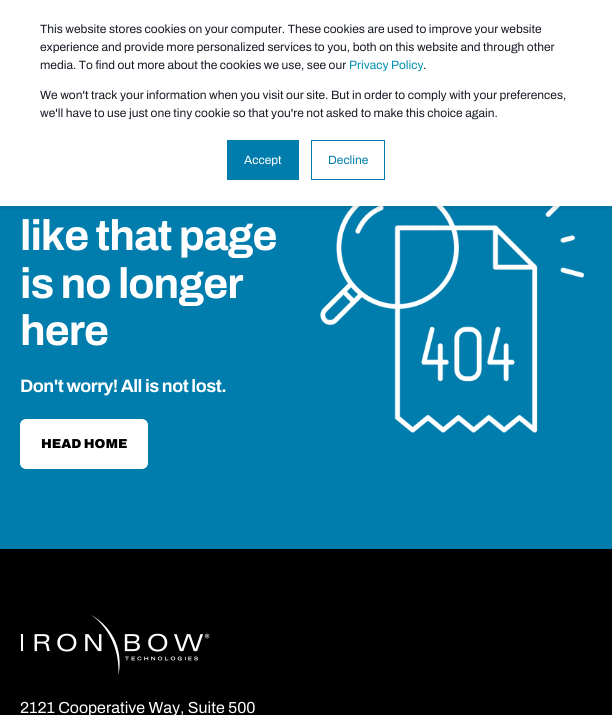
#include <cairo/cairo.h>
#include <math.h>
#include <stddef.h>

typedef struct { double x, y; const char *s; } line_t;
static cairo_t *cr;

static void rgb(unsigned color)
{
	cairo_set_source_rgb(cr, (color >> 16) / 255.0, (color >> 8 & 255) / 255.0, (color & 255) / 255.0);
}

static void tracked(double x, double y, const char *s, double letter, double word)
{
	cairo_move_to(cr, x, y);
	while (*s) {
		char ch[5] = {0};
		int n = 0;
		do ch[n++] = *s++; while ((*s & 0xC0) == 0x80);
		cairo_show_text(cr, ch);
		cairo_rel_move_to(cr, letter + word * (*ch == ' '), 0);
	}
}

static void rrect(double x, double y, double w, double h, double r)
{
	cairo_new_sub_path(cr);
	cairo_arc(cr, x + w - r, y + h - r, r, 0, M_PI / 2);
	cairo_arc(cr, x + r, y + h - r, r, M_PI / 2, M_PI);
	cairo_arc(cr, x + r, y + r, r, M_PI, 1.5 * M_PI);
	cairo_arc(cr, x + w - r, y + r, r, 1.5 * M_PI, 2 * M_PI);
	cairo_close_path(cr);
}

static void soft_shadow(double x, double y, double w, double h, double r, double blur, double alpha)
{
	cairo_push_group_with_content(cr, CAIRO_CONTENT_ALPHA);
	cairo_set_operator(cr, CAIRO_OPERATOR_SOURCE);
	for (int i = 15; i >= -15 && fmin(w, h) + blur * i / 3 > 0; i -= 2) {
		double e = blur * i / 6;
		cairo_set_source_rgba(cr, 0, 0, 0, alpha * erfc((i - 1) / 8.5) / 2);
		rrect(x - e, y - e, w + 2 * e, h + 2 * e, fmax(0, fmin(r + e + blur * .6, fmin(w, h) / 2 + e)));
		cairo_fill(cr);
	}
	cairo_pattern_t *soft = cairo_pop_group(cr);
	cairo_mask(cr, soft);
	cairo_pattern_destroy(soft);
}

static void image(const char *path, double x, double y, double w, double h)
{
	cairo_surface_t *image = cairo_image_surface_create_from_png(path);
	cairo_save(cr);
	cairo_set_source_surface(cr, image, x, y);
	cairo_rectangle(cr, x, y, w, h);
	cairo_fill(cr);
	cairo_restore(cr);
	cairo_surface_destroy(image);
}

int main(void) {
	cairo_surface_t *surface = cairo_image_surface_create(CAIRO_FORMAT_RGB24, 612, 715);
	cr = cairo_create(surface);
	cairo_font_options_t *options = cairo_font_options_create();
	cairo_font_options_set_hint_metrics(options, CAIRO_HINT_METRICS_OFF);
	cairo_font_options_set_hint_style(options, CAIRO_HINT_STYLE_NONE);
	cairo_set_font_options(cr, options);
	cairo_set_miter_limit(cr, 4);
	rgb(0x007dad);
	cairo_paint(cr);
	image("img/1.png", 320, 206, 264, 227);
	rgb(0x000000);
	soft_shadow(-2, 3, 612, 206, 0, 2.5, 0.1);
	rgb(0xffffff);
	cairo_rectangle(cr, 0, 0, 612, 206);
	cairo_fill(cr);
	rgb(0x007dad);
	cairo_rectangle(cr, 227, 140, 72, 40);
	cairo_fill(cr);
	cairo_rectangle(cr, 311.5, 140.5, 73, 39);
	cairo_set_line_width(cr, 1);
	cairo_stroke(cr);
	rgb(0xffffff);
	rrect(20, 419, 128, 50, 6);
	cairo_fill(cr);
	rgb(0x000000);
	cairo_rectangle(cr, 0, 549, 612, 166);
	cairo_fill(cr);
	image("img/2.png", 21, 614, 189, 61);
	cairo_select_font_face(cr, "Archivo", CAIRO_FONT_SLANT_NORMAL, CAIRO_FONT_WEIGHT_NORMAL);
	cairo_set_font_size(cr, 12);
	rgb(0x171b25);
	{
		static const line_t items[] = {
			{40, 33, "This website stores cookies on your computer. These cookies are used to improve your website"},
			{40, 51, "experience and provide more personalized services to you, both on this website and through other"},
			{40, 69, "media. To find out more about the cookies we use, see our"},
		};
		for (size_t i = 0; i < sizeof items / sizeof *items; i++) {
			cairo_move_to(cr, items[i].x, items[i].y);
			cairo_show_text(cr, items[i].s);
		}
	}
	rgb(0x0091ae);
	cairo_move_to(cr, 349, 69);
	cairo_show_text(cr, "Privacy Policy");
	rgb(0x171b25);
	{
		static const line_t items[] = {
			{423, 69, "."},
			{40, 99, "We won't track your information when you visit our site. But in order to comply with your preferences,"},
			{40, 117, "we'll have to use just one tiny cookie so that you're not asked to make this choice again."},
		};
		for (size_t i = 0; i < sizeof items / sizeof *items; i++) {
			cairo_move_to(cr, items[i].x, items[i].y);
			cairo_show_text(cr, items[i].s);
		}
	}
	rgb(0xffffff);
	cairo_move_to(cr, 244, 164);
	cairo_show_text(cr, "Accept");
	rgb(0x007dad);
	cairo_move_to(cr, 328, 164);
	cairo_show_text(cr, "Decline");
	cairo_select_font_face(cr, "Archivo", CAIRO_FONT_SLANT_NORMAL, CAIRO_FONT_WEIGHT_BOLD);
	cairo_set_font_size(cr, 42.75);
	rgb(0xffffff);
	{
		static const line_t items[] = {
			{20, 250, "like that page"},
			{20, 298, "is no longer"},
			{20, 345, "here"},
		};
		for (size_t i = 0; i < sizeof items / sizeof *items; i++) {
			tracked(items[i].x, items[i].y, items[i].s, -1, 0);
		}
	}
	cairo_set_font_size(cr, 18);
	tracked(20, 392, "Don't worry! All is not lost.", -0.5, 0);
	cairo_select_font_face(cr, "Archivo Black", CAIRO_FONT_SLANT_NORMAL, CAIRO_FONT_WEIGHT_NORMAL);
	cairo_set_font_size(cr, 13);
	rgb(0x000000);
	cairo_move_to(cr, 41, 448);
	cairo_show_text(cr, "HEAD HOME");
	cairo_select_font_face(cr, "Archivo", CAIRO_FONT_SLANT_NORMAL, CAIRO_FONT_WEIGHT_NORMAL);
	cairo_set_font_size(cr, 16);
	rgb(0xffffff);
	cairo_move_to(cr, 20, 713);
	cairo_show_text(cr, "2121 Cooperative Way, Suite 500");
	cairo_surface_write_to_png(surface, "page.png");
	cairo_font_options_destroy(options);
	cairo_destroy(cr);
	cairo_surface_destroy(surface);
	return 0;
}
